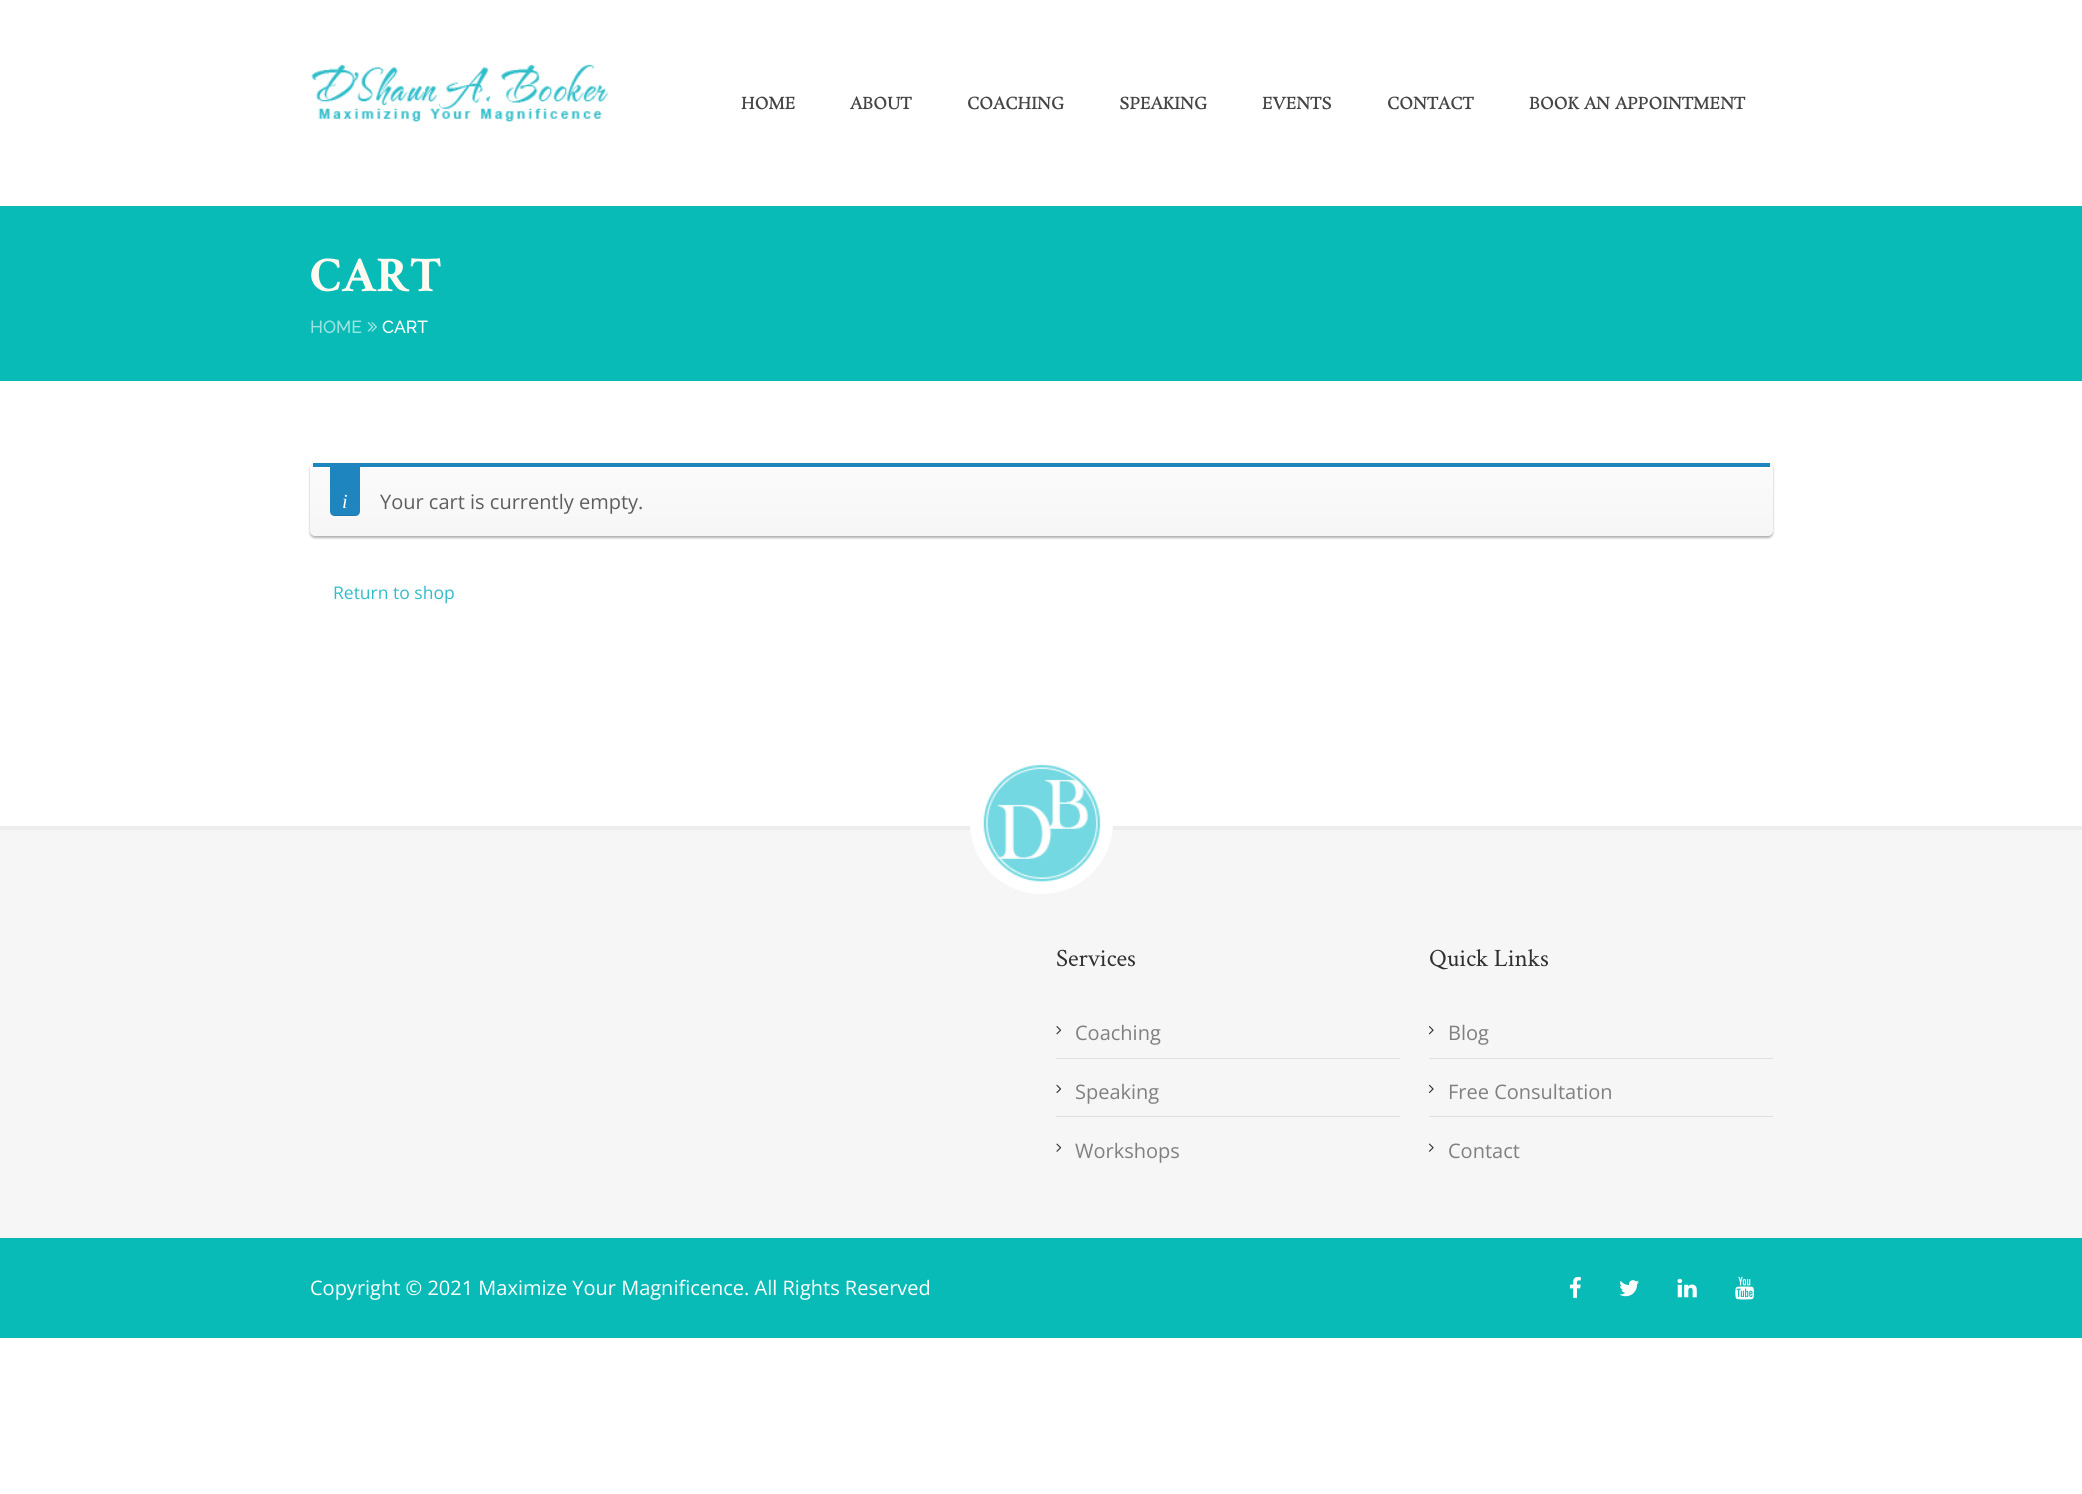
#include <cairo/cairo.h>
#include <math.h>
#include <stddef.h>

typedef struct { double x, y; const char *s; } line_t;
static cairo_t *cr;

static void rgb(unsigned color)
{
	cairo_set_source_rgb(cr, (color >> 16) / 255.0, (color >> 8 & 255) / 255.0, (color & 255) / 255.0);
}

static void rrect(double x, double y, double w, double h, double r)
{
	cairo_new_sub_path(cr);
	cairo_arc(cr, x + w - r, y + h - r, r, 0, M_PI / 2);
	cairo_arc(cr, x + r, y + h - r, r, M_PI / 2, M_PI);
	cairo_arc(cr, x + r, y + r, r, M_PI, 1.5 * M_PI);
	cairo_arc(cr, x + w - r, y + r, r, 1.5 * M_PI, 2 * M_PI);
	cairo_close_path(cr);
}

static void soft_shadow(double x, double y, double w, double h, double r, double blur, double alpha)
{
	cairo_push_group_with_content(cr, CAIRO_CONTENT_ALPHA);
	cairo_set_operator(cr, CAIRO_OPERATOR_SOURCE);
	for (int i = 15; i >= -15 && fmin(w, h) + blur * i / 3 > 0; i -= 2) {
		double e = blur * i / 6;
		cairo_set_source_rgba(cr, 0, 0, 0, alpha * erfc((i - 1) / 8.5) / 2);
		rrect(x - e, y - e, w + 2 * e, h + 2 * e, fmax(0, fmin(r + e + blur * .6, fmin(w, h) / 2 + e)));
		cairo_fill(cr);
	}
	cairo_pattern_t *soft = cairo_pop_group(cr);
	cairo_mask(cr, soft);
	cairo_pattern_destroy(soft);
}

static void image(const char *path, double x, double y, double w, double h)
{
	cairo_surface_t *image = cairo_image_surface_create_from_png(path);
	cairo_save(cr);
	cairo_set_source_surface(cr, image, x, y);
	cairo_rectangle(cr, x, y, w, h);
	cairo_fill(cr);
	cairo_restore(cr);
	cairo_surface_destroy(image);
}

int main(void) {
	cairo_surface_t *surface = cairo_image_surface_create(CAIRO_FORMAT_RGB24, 2082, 1494);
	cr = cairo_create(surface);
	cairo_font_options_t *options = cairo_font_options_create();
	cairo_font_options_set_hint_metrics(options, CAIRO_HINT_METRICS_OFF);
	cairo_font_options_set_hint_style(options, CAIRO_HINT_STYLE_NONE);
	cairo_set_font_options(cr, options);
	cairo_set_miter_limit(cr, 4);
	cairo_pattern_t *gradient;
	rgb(0xffffff);
	cairo_paint(cr);
	image("img/1.png", 311, 64, 298, 58);
	rgb(0x08bbb7);
	cairo_rectangle(cr, 0, 206, 2082, 175);
	cairo_fill(cr);
	image("img/2.png", 367, 322, 10, 10);
	rgb(0x000000);
	soft_shadow(310, 464, 1463, 74, 5, 1, 0.3);
	cairo_save(cr);
	rrect(310, 463, 1463, 73, 5);
	cairo_clip(cr);
	gradient = cairo_pattern_create_linear(1041, 396, 1041, 466);
	cairo_pattern_add_color_stop_rgba(gradient, 0, 0.988, 0.984, 0.988, 1);
	cairo_pattern_add_color_stop_rgba(gradient, 1, 0.969, 0.965, 0.969, 1);
	cairo_set_source(cr, gradient);
	cairo_pattern_destroy(gradient);
	cairo_rectangle(cr, 310, 463, 1463, 3);
	cairo_fill(cr);
	gradient = cairo_pattern_create_linear(1041, 466, 1041, 536);
	cairo_pattern_add_color_stop_rgba(gradient, 0, 0.988, 0.984, 0.988, 1);
	cairo_pattern_add_color_stop_rgba(gradient, 1, 0.969, 0.965, 0.969, 1);
	cairo_set_source(cr, gradient);
	cairo_pattern_destroy(gradient);
	cairo_new_path(cr);
	cairo_move_to(cr, 310, 466);
	cairo_line_to(cr, 1773, 466);
	cairo_line_to(cr, 1773, 531);
	cairo_curve_to(cr, 1773, 534, 1771, 536, 1768, 536);
	cairo_line_to(cr, 315, 536);
	cairo_curve_to(cr, 312, 536, 310, 534, 310, 531);
	cairo_close_path(cr);
	cairo_fill(cr);
	cairo_restore(cr);
	rgb(0xffffff);
	cairo_new_path(cr);
	cairo_move_to(cr, 315, 468);
	cairo_line_to(cr, 1768, 468);
	cairo_curve_to(cr, 1770, 468, 1772, 468, 1772, 469);
	cairo_line_to(cr, 1772, 534);
	cairo_line_to(cr, 1772, 531);
	cairo_line_to(cr, 1772, 468);
	cairo_curve_to(cr, 1772, 467, 1770, 466, 1768, 466);
	cairo_line_to(cr, 315, 466);
	cairo_curve_to(cr, 312, 466, 310, 467, 310, 468);
	cairo_line_to(cr, 310, 469);
	cairo_curve_to(cr, 310, 468, 312, 468, 315, 468);
	cairo_close_path(cr);
	cairo_fill(cr);
	rgb(0x1e85be);
	cairo_rectangle(cr, 313, 463, 1457, 4);
	cairo_fill(cr);
	cairo_new_path(cr);
	cairo_move_to(cr, 330, 466);
	cairo_line_to(cr, 360, 466);
	cairo_line_to(cr, 360, 511);
	cairo_curve_to(cr, 360, 514, 358, 516, 355, 516);
	cairo_line_to(cr, 335, 516);
	cairo_curve_to(cr, 332, 516, 330, 514, 330, 511);
	cairo_close_path(cr);
	cairo_fill(cr);
	cairo_set_source_rgba(cr, 0, 0, 0, 0.1);
	cairo_new_path(cr);
	cairo_move_to(cr, 330, 510);
	cairo_curve_to(cr, 330, 516, 333.5, 516, 338.5, 516);
	cairo_line_to(cr, 351.5, 516);
	cairo_curve_to(cr, 356.5, 516, 360, 516, 360, 510);
	cairo_curve_to(cr, 360, 513, 358, 515, 355, 515);
	cairo_line_to(cr, 335, 515);
	cairo_curve_to(cr, 332, 515, 330, 513, 330, 510);
	cairo_close_path(cr);
	cairo_fill(cr);
	rgb(0xf6f6f6);
	cairo_rectangle(cr, 0, 830, 2082, 408);
	cairo_fill(cr);
	rgb(0xededed);
	cairo_rectangle(cr, 0, 826, 2082, 4);
	cairo_fill(cr);
	rgb(0xffffff);
	cairo_arc(cr, 1041.5, 822.5, 71.5, 0, 2 * M_PI);
	cairo_fill(cr);
	image("img/3.png", 983, 764, 118, 118);
	rgb(0xdfdfdf);
	cairo_rectangle(cr, 1056, 1058, 344, 1);
	cairo_fill(cr);
	image("img/4.png", 1056, 1026, 6, 9);
	cairo_rectangle(cr, 1056, 1116, 344, 1);
	cairo_fill(cr);
	image("img/5.png", 1056, 1084, 6, 9);
	image("img/6.png", 1056, 1143, 6, 9);
	cairo_rectangle(cr, 1429, 1058, 344, 1);
	cairo_fill(cr);
	image("img/7.png", 1428, 1026, 6, 9);
	cairo_rectangle(cr, 1429, 1116, 344, 1);
	cairo_fill(cr);
	image("img/8.png", 1428, 1084, 6, 10);
	image("img/9.png", 1428, 1143, 6, 9);
	rgb(0x08bbb7);
	cairo_rectangle(cr, 0, 1238, 2082, 100);
	cairo_fill(cr);
	image("img/10.png", 1569, 1277, 12, 21);
	image("img/11.png", 1619, 1280, 20, 17);
	image("img/12.png", 1677, 1278, 20, 20);
	image("img/13.png", 1735, 1276, 19, 24);
	cairo_select_font_face(cr, "Rosarivo", CAIRO_FONT_SLANT_NORMAL, CAIRO_FONT_WEIGHT_BOLD);
	cairo_set_font_size(cr, 16.25);
	rgb(0x444444);
	{
		static const line_t items[] = {
			{741, 109, "HOME"},
			{850, 109, "ABOUT"},
			{967, 109, "COACHING"},
			{1119, 109, "SPEAKING"},
			{1262, 109, "EVENTS"},
			{1387, 109, "CONTACT"},
			{1529, 109, "BOOK AN APPOINTMENT"},
		};
		for (size_t i = 0; i < sizeof items / sizeof *items; i++) {
			cairo_move_to(cr, items[i].x, items[i].y);
			cairo_show_text(cr, items[i].s);
		}
	}
	cairo_select_font_face(cr, "Crimson Text", CAIRO_FONT_SLANT_NORMAL, CAIRO_FONT_WEIGHT_BOLD);
	cairo_set_font_size(cr, 50);
	rgb(0xfffaf0);
	cairo_move_to(cr, 310, 291);
	cairo_show_text(cr, "CART");
	cairo_select_font_face(cr, "Raleway Medium", CAIRO_FONT_SLANT_NORMAL, CAIRO_FONT_WEIGHT_NORMAL);
	cairo_set_font_size(cr, 17.5);
	rgb(0x9ce4e2);
	cairo_move_to(cr, 310, 333);
	cairo_show_text(cr, "HOME");
	rgb(0xffffff);
	cairo_move_to(cr, 382, 333);
	cairo_show_text(cr, "CART");
	cairo_select_font_face(cr, "Liberation Serif", CAIRO_FONT_SLANT_ITALIC, CAIRO_FONT_WEIGHT_NORMAL);
	cairo_set_font_size(cr, 20);
	cairo_move_to(cr, 342, 508);
	cairo_show_text(cr, "i");
	cairo_select_font_face(cr, "Open Sans", CAIRO_FONT_SLANT_NORMAL, CAIRO_FONT_WEIGHT_NORMAL);
	rgb(0x5e5e5e);
	cairo_move_to(cr, 380, 509);
	cairo_show_text(cr, "Your cart is currently empty.");
	cairo_set_font_size(cr, 17.5);
	rgb(0x30bdca);
	cairo_move_to(cr, 333, 599);
	cairo_show_text(cr, "Return to shop");
	cairo_select_font_face(cr, "Crimson Text", CAIRO_FONT_SLANT_NORMAL, CAIRO_FONT_WEIGHT_NORMAL);
	cairo_set_font_size(cr, 25);
	rgb(0x303030);
	cairo_move_to(cr, 1056, 966);
	cairo_show_text(cr, "Services");
	cairo_select_font_face(cr, "Open Sans", CAIRO_FONT_SLANT_NORMAL, CAIRO_FONT_WEIGHT_NORMAL);
	cairo_set_font_size(cr, 20);
	rgb(0x808080);
	{
		static const line_t items[] = {
			{1075, 1040, "Coaching"},
			{1075, 1099, "Speaking"},
			{1075, 1158, "Workshops"},
		};
		for (size_t i = 0; i < sizeof items / sizeof *items; i++) {
			cairo_move_to(cr, items[i].x, items[i].y);
			cairo_show_text(cr, items[i].s);
		}
	}
	cairo_select_font_face(cr, "Crimson Text", CAIRO_FONT_SLANT_NORMAL, CAIRO_FONT_WEIGHT_NORMAL);
	cairo_set_font_size(cr, 25);
	rgb(0x303030);
	cairo_move_to(cr, 1429, 966);
	cairo_show_text(cr, "Quick Links");
	cairo_select_font_face(cr, "Open Sans", CAIRO_FONT_SLANT_NORMAL, CAIRO_FONT_WEIGHT_NORMAL);
	cairo_set_font_size(cr, 20);
	rgb(0x808080);
	{
		static const line_t items[] = {
			{1448, 1040, "Blog"},
			{1448, 1099, "Free Consultation"},
			{1448, 1158, "Contact"},
		};
		for (size_t i = 0; i < sizeof items / sizeof *items; i++) {
			cairo_move_to(cr, items[i].x, items[i].y);
			cairo_show_text(cr, items[i].s);
		}
	}
	rgb(0xffffff);
	cairo_move_to(cr, 310, 1295);
	cairo_show_text(cr, "Copyright © 2021 Maximize Your Magnificence. All Rights Reserved");
	cairo_surface_write_to_png(surface, "page.png");
	cairo_font_options_destroy(options);
	cairo_destroy(cr);
	cairo_surface_destroy(surface);
	return 0;
}
